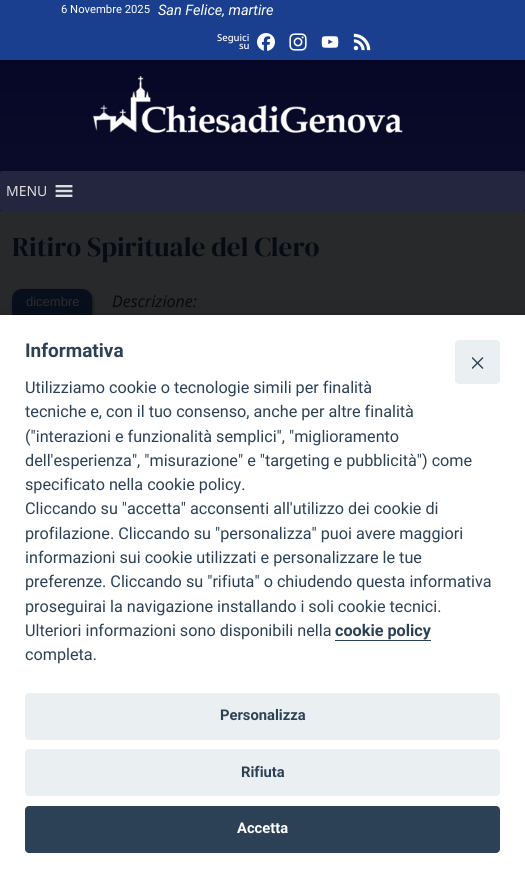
#include <cairo/cairo.h>
#include <math.h>
#include <stddef.h>

typedef struct { double x, y; const char *s; } line_t;
static cairo_t *cr;

static void rgb(unsigned color)
{
	cairo_set_source_rgb(cr, (color >> 16) / 255.0, (color >> 8 & 255) / 255.0, (color & 255) / 255.0);
}

static void rrect(double x, double y, double w, double h, double r)
{
	cairo_new_sub_path(cr);
	cairo_arc(cr, x + w - r, y + h - r, r, 0, M_PI / 2);
	cairo_arc(cr, x + r, y + h - r, r, M_PI / 2, M_PI);
	cairo_arc(cr, x + r, y + r, r, M_PI, 1.5 * M_PI);
	cairo_arc(cr, x + w - r, y + r, r, 1.5 * M_PI, 2 * M_PI);
	cairo_close_path(cr);
}

static void soft_shadow(double x, double y, double w, double h, double r, double blur, double alpha)
{
	cairo_push_group_with_content(cr, CAIRO_CONTENT_ALPHA);
	cairo_set_operator(cr, CAIRO_OPERATOR_SOURCE);
	for (int i = 15; i >= -15 && fmin(w, h) + blur * i / 3 > 0; i -= 2) {
		double e = blur * i / 6;
		cairo_set_source_rgba(cr, 0, 0, 0, alpha * erfc((i - 1) / 8.5) / 2);
		rrect(x - e, y - e, w + 2 * e, h + 2 * e, fmax(0, fmin(r + e + blur * .6, fmin(w, h) / 2 + e)));
		cairo_fill(cr);
	}
	cairo_pattern_t *soft = cairo_pop_group(cr);
	cairo_mask(cr, soft);
	cairo_pattern_destroy(soft);
}

static void image(const char *path, double x, double y, double w, double h)
{
	cairo_surface_t *image = cairo_image_surface_create_from_png(path);
	cairo_save(cr);
	cairo_set_source_surface(cr, image, x, y);
	cairo_rectangle(cr, x, y, w, h);
	cairo_fill(cr);
	cairo_restore(cr);
	cairo_surface_destroy(image);
}

int main(void) {
	cairo_surface_t *surface = cairo_image_surface_create(CAIRO_FORMAT_RGB24, 525, 878);
	cr = cairo_create(surface);
	cairo_font_options_t *options = cairo_font_options_create();
	cairo_font_options_set_hint_metrics(options, CAIRO_HINT_METRICS_OFF);
	cairo_font_options_set_hint_style(options, CAIRO_HINT_STYLE_NONE);
	cairo_set_font_options(cr, options);
	cairo_set_miter_limit(cr, 4);
	cairo_pattern_t *gradient;
	rgb(0xffffff);
	cairo_paint(cr);
	gradient = cairo_pattern_create_linear(263, 0, 263, 211);
	cairo_pattern_add_color_stop_rgba(gradient, 0, 0.016, 0.02, 0.153, 1);
	cairo_pattern_add_color_stop_rgba(gradient, 1, 0.047, 0.051, 0.157, 1);
	cairo_set_source(cr, gradient);
	cairo_pattern_destroy(gradient);
	cairo_rectangle(cr, 0, 60, 525, 151);
	cairo_fill(cr);
	rgb(0x1a3f8e);
	cairo_rectangle(cr, 0, 0, 525, 60);
	cairo_fill(cr);
	image("img/1.png", 257, 33, 18, 18);
	image("img/2.png", 289, 33, 18, 18);
	image("img/3.png", 321, 36, 18, 12);
	image("img/4.png", 353, 33, 18, 18);
	image("img/5.png", 93, 76, 310, 57);
	rgb(0x24253e);
	rrect(0, 171, 525, 40, 2);
	cairo_fill(cr);
	image("img/6.png", 55, 185, 18, 12);
	gradient = cairo_pattern_create_linear(262, 211, 263, 683);
	cairo_pattern_add_color_stop_rgba(gradient, 0, 0.153, 0.161, 0.169, 1);
	cairo_pattern_add_color_stop_rgba(gradient, 0.7, 0.153, 0.161, 0.169, 1);
	cairo_pattern_add_color_stop_rgba(gradient, 1, 0.165, 0.169, 0.176, 1);
	cairo_set_source(cr, gradient);
	cairo_pattern_destroy(gradient);
	cairo_rectangle(cr, 0, 211, 525, 104);
	cairo_fill(cr);
	rgb(0x030507);
	soft_shadow(13, 290, 80, 72, 10, 1.5, 0.5);
	rgb(0x070f1c);
	cairo_new_path(cr);
	cairo_move_to(cr, 22, 289);
	cairo_line_to(cr, 82, 289);
	cairo_curve_to(cr, 87.5, 289, 92, 293.5, 92, 299);
	cairo_line_to(cr, 92, 315);
	cairo_line_to(cr, 12, 315);
	cairo_line_to(cr, 12, 299);
	cairo_curve_to(cr, 12, 293.5, 16.5, 289, 22, 289);
	cairo_close_path(cr);
	cairo_fill(cr);
	rgb(0x020203);
	soft_shadow(0, 326, 525, 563, 0, 17, 0.28);
	rgb(0xffffff);
	cairo_rectangle(cr, 0, 315, 525, 563);
	cairo_fill(cr);
	rgb(0xeaeff2);
	rrect(455, 340, 45, 44, 4);
	cairo_fill(cr);
	rgb(0x2d4156);
	cairo_new_path(cr);
	cairo_move_to(cr, 483, 357.5);
	cairo_curve_to(cr, 483.5, 358, 483.5, 358, 483, 358.5);
	cairo_line_to(cr, 473, 368.5);
	cairo_curve_to(cr, 473, 369, 472.5, 369, 472, 368.5);
	cairo_curve_to(cr, 472, 368.5, 472, 368, 472, 367.5);
	cairo_line_to(cr, 482, 357.5);
	cairo_curve_to(cr, 482.5, 357, 483, 357, 483, 357.5);
	cairo_close_path(cr);
	cairo_fill(cr);
	cairo_new_path(cr);
	cairo_move_to(cr, 472, 357.5);
	cairo_curve_to(cr, 472.5, 357, 473, 357, 473, 357.5);
	cairo_line_to(cr, 483, 367.5);
	cairo_curve_to(cr, 483.5, 368, 483.5, 368.5, 483, 368.5);
	cairo_curve_to(cr, 483, 369, 482.5, 369, 482, 368.5);
	cairo_line_to(cr, 472, 358.5);
	cairo_curve_to(cr, 472, 358, 472, 358, 472, 357.5);
	cairo_close_path(cr);
	cairo_fill(cr);
	cairo_rectangle(cr, 335, 640, 96, 1);
	cairo_fill(cr);
	rgb(0xeaeff2);
	rrect(25, 693, 475, 47, 4);
	cairo_fill(cr);
	rrect(25, 749, 475, 47, 4);
	cairo_fill(cr);
	rgb(0x2d4156);
	rrect(25, 806, 475, 47, 4);
	cairo_fill(cr);
	cairo_select_font_face(cr, "Roboto", CAIRO_FONT_SLANT_NORMAL, CAIRO_FONT_WEIGHT_NORMAL);
	cairo_set_font_size(cr, 11.25);
	rgb(0xffffff);
	cairo_move_to(cr, 61, 13);
	cairo_show_text(cr, "6 Novembre 2025");
	cairo_select_font_face(cr, "Roboto", CAIRO_FONT_SLANT_ITALIC, CAIRO_FONT_WEIGHT_NORMAL);
	cairo_set_font_size(cr, 14.5);
	cairo_move_to(cr, 158, 15);
	cairo_show_text(cr, "San Felice, martire");
	cairo_select_font_face(cr, "Noto Sans Medium", CAIRO_FONT_SLANT_NORMAL, CAIRO_FONT_WEIGHT_NORMAL);
	cairo_set_font_size(cr, 9.5);
	cairo_move_to(cr, 217, 41);
	cairo_show_text(cr, "Seguici");
	cairo_move_to(cr, 239, 49);
	cairo_show_text(cr, "su");
	cairo_select_font_face(cr, "Noto Sans", CAIRO_FONT_SLANT_NORMAL, CAIRO_FONT_WEIGHT_NORMAL);
	cairo_set_font_size(cr, 14);
	rgb(0xdddddd);
	cairo_move_to(cr, 6, 196);
	cairo_show_text(cr, "MENU");
	cairo_select_font_face(cr, "DM Serif Display", CAIRO_FONT_SLANT_NORMAL, CAIRO_FONT_WEIGHT_NORMAL);
	cairo_set_font_size(cr, 27.25);
	rgb(0x050a13);
	cairo_move_to(cr, 12, 256);
	cairo_show_text(cr, "Ritiro Spirituale del Clero");
	cairo_select_font_face(cr, "Liberation Sans", CAIRO_FONT_SLANT_NORMAL, CAIRO_FONT_WEIGHT_NORMAL);
	cairo_set_font_size(cr, 13);
	rgb(0x2a2b2d);
	cairo_move_to(cr, 26, 306);
	cairo_show_text(cr, "dicembre");
	cairo_select_font_face(cr, "Noto Sans", CAIRO_FONT_SLANT_ITALIC, CAIRO_FONT_WEIGHT_NORMAL);
	cairo_set_font_size(cr, 16);
	rgb(0x080b0d);
	cairo_move_to(cr, 112, 307);
	cairo_show_text(cr, "Descrizione:");
	cairo_select_font_face(cr, "Roboto", CAIRO_FONT_SLANT_NORMAL, CAIRO_FONT_WEIGHT_BOLD);
	cairo_set_font_size(cr, 19);
	rgb(0x2d4156);
	cairo_move_to(cr, 25, 357);
	cairo_show_text(cr, "Informativa");
	cairo_select_font_face(cr, "Roboto", CAIRO_FONT_SLANT_NORMAL, CAIRO_FONT_WEIGHT_NORMAL);
	cairo_set_font_size(cr, 16.2);
	{
		static const line_t items[] = {
			{25, 393, "Utilizziamo cookie o tecnologie simili per finalità"},
			{25, 417, "tecniche e, con il tuo consenso, anche per altre finalità"},
			{25, 442, "(\"interazioni e funzionalità semplici\", \"miglioramento"},
			{25, 466, "dell'esperienza\", \"misurazione\" e \"targeting e pubblicità\") come"},
			{25, 490, "specificato nella cookie policy."},
			{25, 514, "Cliccando su \"accetta\" acconsenti all'utilizzo dei cookie di"},
			{25, 539, "profilazione. Cliccando su \"personalizza\" puoi avere maggiori"},
			{25, 563, "informazioni sui cookie utilizzati e personalizzare le tue"},
			{25, 587, "preferenze. Cliccando su \"rifiuta\" o chiudendo questa informativa"},
			{25, 612, "proseguirai la navigazione installando i soli cookie tecnici."},
			{25, 636, "Ulteriori informazioni sono disponibili nella"},
		};
		for (size_t i = 0; i < sizeof items / sizeof *items; i++) {
			cairo_move_to(cr, items[i].x, items[i].y);
			cairo_show_text(cr, items[i].s);
		}
	}
	cairo_select_font_face(cr, "Roboto", CAIRO_FONT_SLANT_NORMAL, CAIRO_FONT_WEIGHT_BOLD);
	cairo_move_to(cr, 335, 636);
	cairo_show_text(cr, "cookie policy");
	cairo_select_font_face(cr, "Roboto", CAIRO_FONT_SLANT_NORMAL, CAIRO_FONT_WEIGHT_NORMAL);
	cairo_move_to(cr, 25, 660);
	cairo_show_text(cr, "completa.");
	cairo_select_font_face(cr, "Roboto", CAIRO_FONT_SLANT_NORMAL, CAIRO_FONT_WEIGHT_BOLD);
	cairo_set_font_size(cr, 14.75);
	cairo_move_to(cr, 220, 720);
	cairo_show_text(cr, "Personalizza");
	cairo_move_to(cr, 241, 777);
	cairo_show_text(cr, "Rifiuta");
	rgb(0xffffff);
	cairo_move_to(cr, 237, 833);
	cairo_show_text(cr, "Accetta");
	cairo_surface_write_to_png(surface, "page.png");
	cairo_font_options_destroy(options);
	cairo_destroy(cr);
	cairo_surface_destroy(surface);
	return 0;
}
